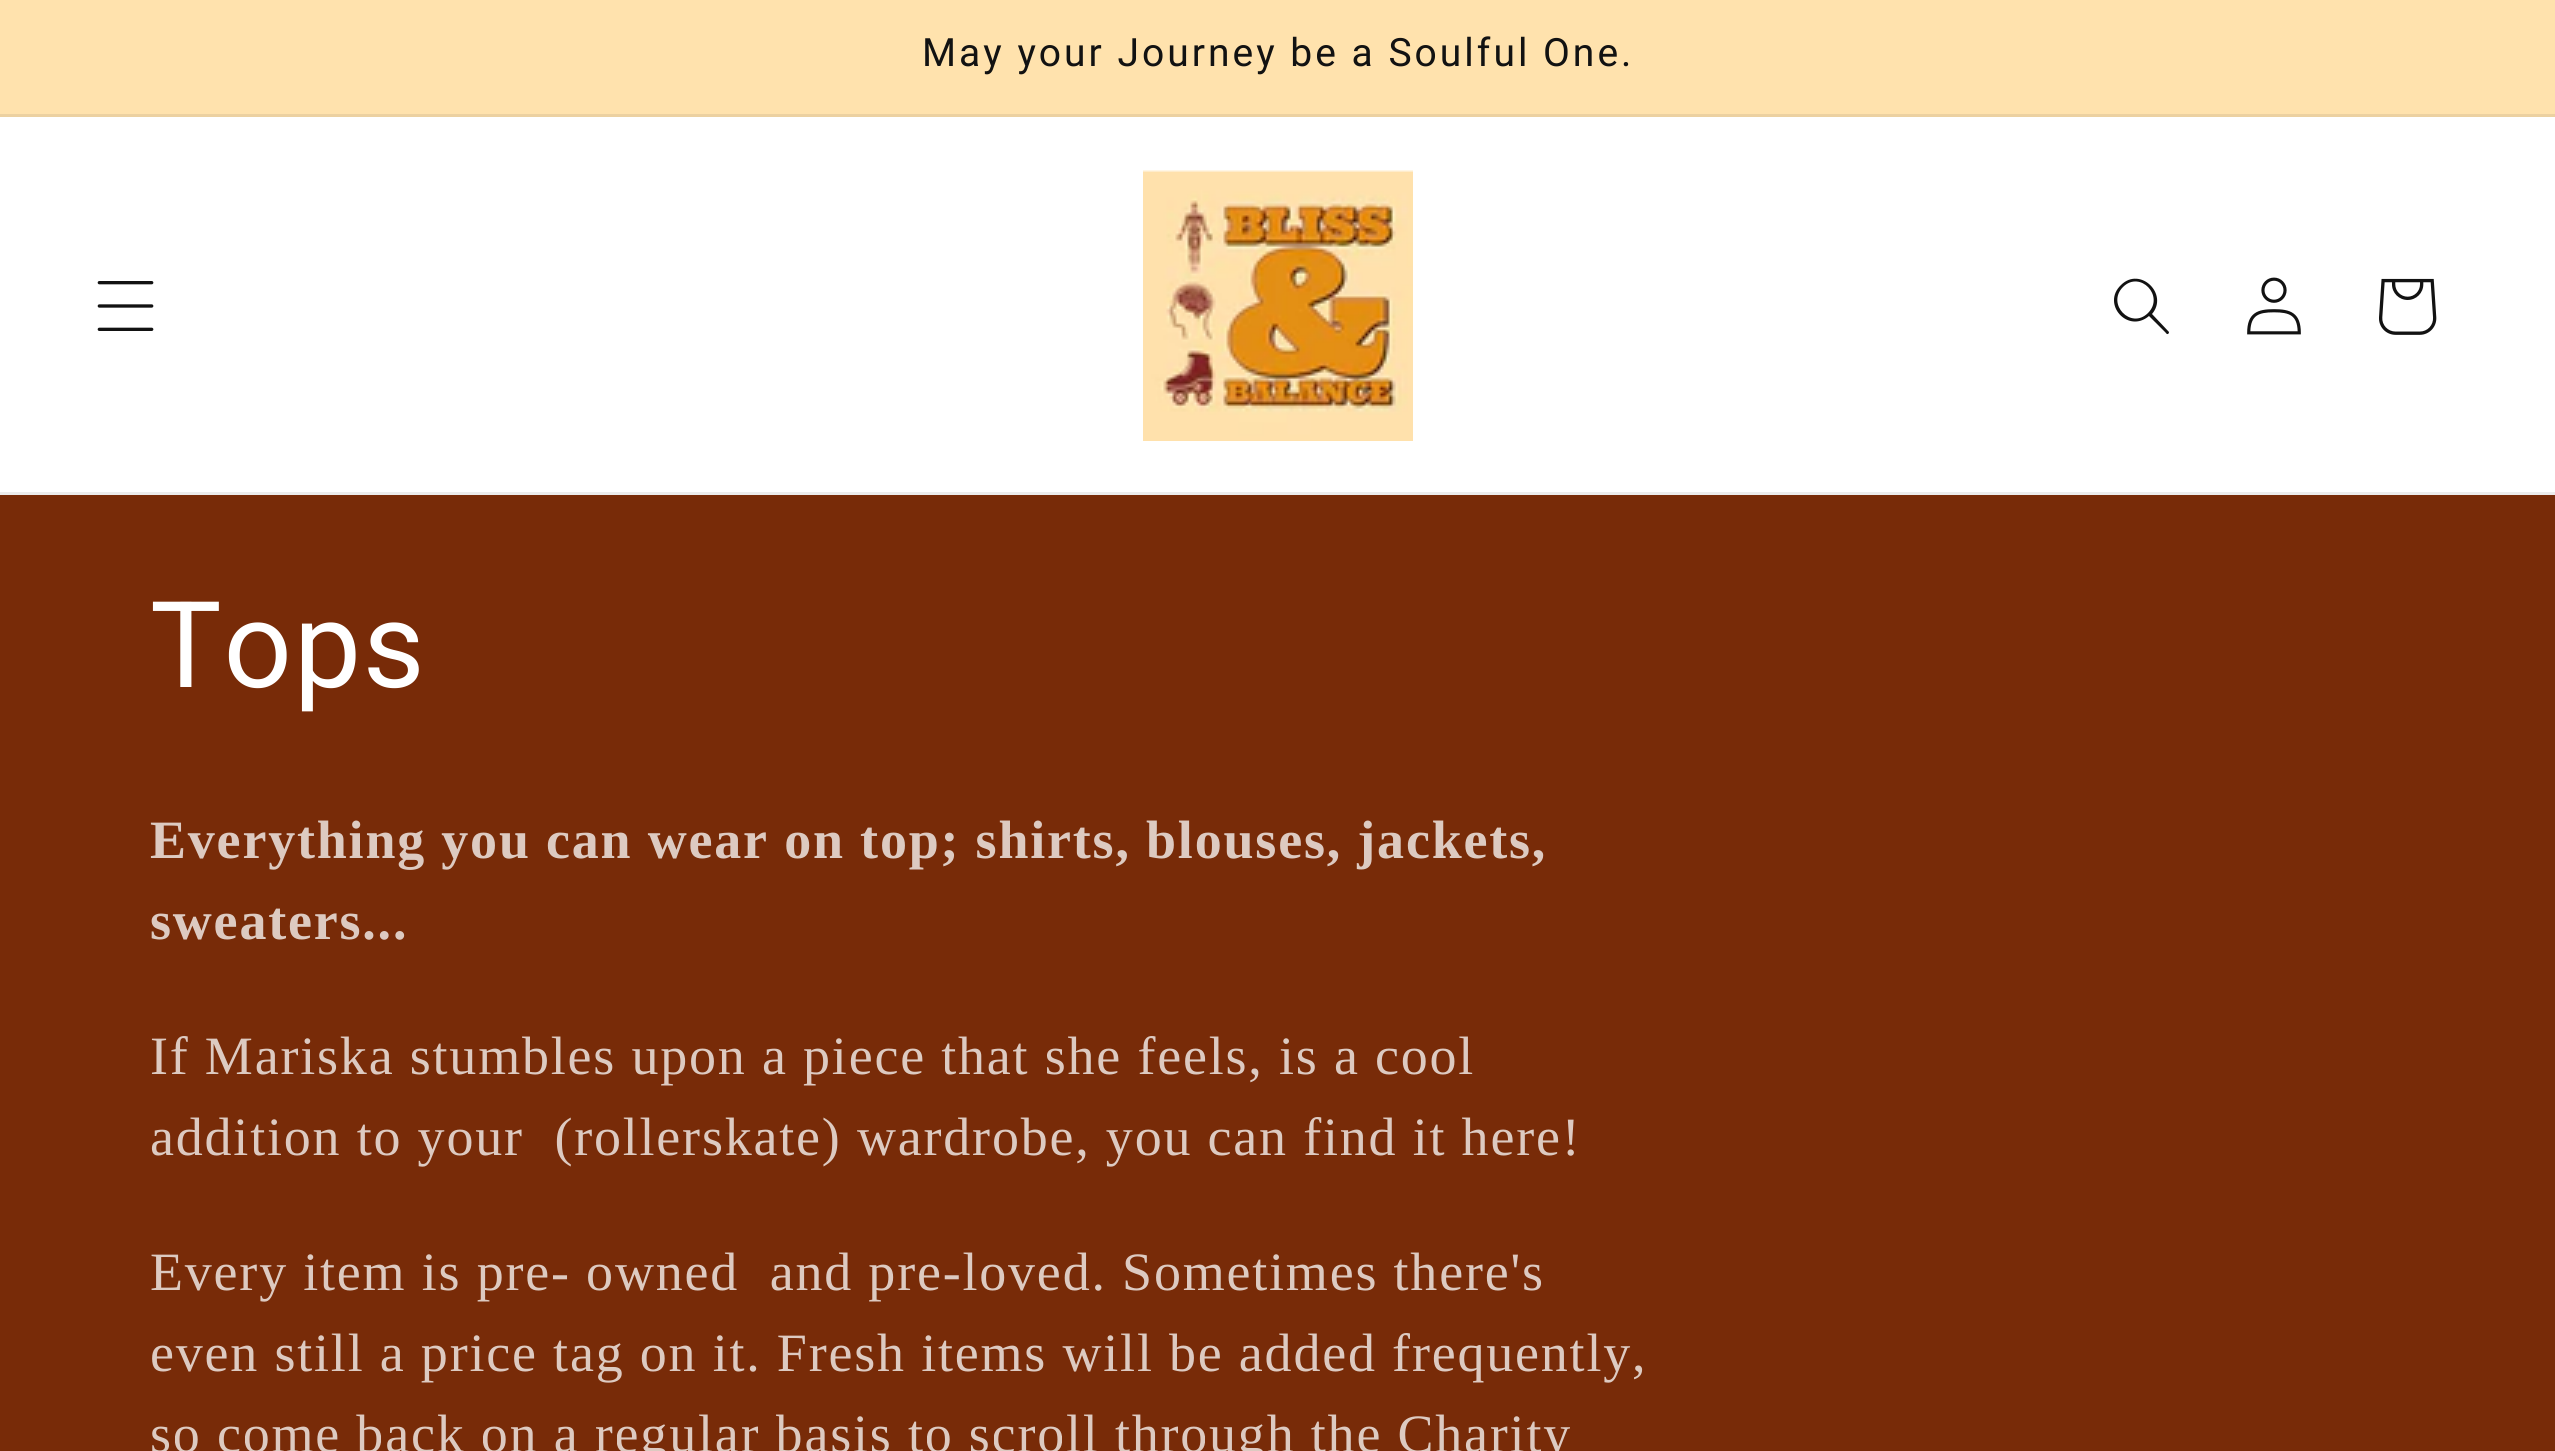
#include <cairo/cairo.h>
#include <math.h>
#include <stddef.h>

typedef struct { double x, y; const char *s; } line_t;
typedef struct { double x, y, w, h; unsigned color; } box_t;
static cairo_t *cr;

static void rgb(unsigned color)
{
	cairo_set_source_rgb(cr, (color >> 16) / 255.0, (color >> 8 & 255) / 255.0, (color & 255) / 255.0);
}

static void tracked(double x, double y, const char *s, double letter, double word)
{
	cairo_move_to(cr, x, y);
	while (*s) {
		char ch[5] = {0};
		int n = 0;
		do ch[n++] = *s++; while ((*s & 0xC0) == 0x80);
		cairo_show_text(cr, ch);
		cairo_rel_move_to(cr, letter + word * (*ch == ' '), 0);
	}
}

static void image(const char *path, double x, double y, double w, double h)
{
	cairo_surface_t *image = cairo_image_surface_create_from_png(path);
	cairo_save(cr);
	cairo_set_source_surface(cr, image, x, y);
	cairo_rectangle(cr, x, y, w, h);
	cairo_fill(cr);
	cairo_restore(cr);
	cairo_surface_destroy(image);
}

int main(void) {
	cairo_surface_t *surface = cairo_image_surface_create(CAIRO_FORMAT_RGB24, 2555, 1451);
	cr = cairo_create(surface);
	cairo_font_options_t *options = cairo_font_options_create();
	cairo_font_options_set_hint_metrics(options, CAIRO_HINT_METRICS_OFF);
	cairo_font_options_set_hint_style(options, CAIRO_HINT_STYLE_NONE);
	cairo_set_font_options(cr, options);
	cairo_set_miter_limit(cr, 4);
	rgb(0xffffff);
	cairo_paint(cr);
	{
		static const box_t items[] = {
			{0, 0, 2555, 114, 0xffe2ad},
			{0, 114, 2555, 3, 0xecd1a1},
			{0, 492, 2555, 3, 0xececec},
		};
		for (size_t i = 0; i < sizeof items / sizeof *items; i++) {
			rgb(items[i].color);
			cairo_rectangle(cr, items[i].x, items[i].y, items[i].w, items[i].h);
			cairo_fill(cr);
		}
	}
	image("img/1.png", 97, 281, 57, 50);
	image("img/2.png", 1143, 170, 270, 271);
	rgb(0x121212);
	cairo_set_fill_rule(cr, CAIRO_FILL_RULE_EVEN_ODD);
	cairo_new_path(cr);
	cairo_move_to(cr, 2148, 313);
	cairo_curve_to(cr, 2131, 330, 2106, 304, 2123, 287);
	cairo_curve_to(cr, 2140, 270, 2165, 296, 2148, 313);
	cairo_move_to(cr, 2149, 316);
	cairo_curve_to(cr, 2128, 334, 2101, 304, 2121, 285);
	cairo_curve_to(cr, 2140, 266, 2169, 294, 2152, 314);
	cairo_line_to(cr, 2169, 332);
	cairo_curve_to(cr, 2169, 334, 2167, 335, 2166, 333);
	cairo_close_path(cr);
	cairo_fill(cr);
	image("img/3.png", 2247, 277, 54, 58);
	image("img/4.png", 2379, 278, 58, 57);
	rgb(0x782b08);
	cairo_rectangle(cr, 0, 495, 2555, 956);
	cairo_fill(cr);
	cairo_select_font_face(cr, "Roboto", CAIRO_FONT_SLANT_NORMAL, CAIRO_FONT_WEIGHT_NORMAL);
	cairo_set_font_size(cr, 39);
	rgb(0x121212);
	tracked(922, 66, "May your Journey be a Soulful One.", 3, 0);
	cairo_set_font_size(cr, 120);
	rgb(0xffffff);
	tracked(150, 687, "Tops", 1.8, 0);
	cairo_select_font_face(cr, "Liberation Serif", CAIRO_FONT_SLANT_NORMAL, CAIRO_FONT_WEIGHT_BOLD);
	cairo_set_font_size(cr, 54);
	rgb(0xddcac1);
	tracked(150, 858, "Everything you can wear on top; shirts, blouses, jackets,", 1.8, 0);
	tracked(150, 939, "sweaters...", 1.8, 0);
	cairo_select_font_face(cr, "Liberation Serif", CAIRO_FONT_SLANT_NORMAL, CAIRO_FONT_WEIGHT_NORMAL);
	{
		static const line_t items[] = {
			{150, 1074, "If Mariska stumbles upon a piece that she feels, is a cool"},
			{150, 1155, "addition to your  (rollerskate) wardrobe, you can find it here!"},
			{150, 1290, "Every item is pre- owned  and pre-loved. Sometimes there's"},
			{150, 1371, "even still a price tag on it. Fresh items will be added frequently,"},
			{150, 1452, "so come back on a regular basis to scroll through the Charity"},
		};
		for (size_t i = 0; i < sizeof items / sizeof *items; i++) {
			tracked(items[i].x, items[i].y, items[i].s, 1.8, 0);
		}
	}
	cairo_surface_write_to_png(surface, "page.png");
	cairo_font_options_destroy(options);
	cairo_destroy(cr);
	cairo_surface_destroy(surface);
	return 0;
}
